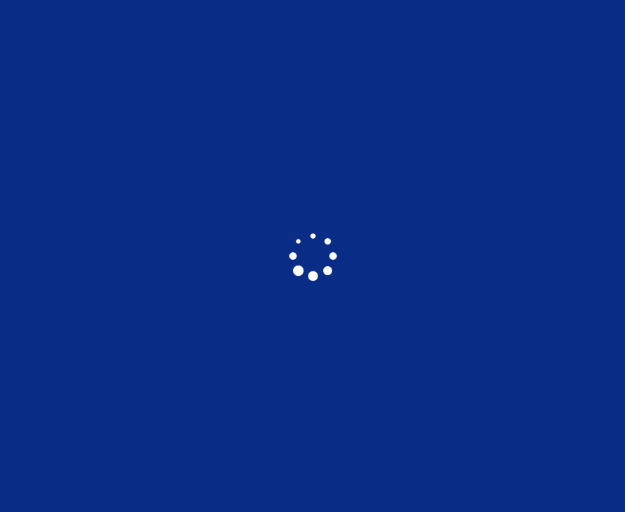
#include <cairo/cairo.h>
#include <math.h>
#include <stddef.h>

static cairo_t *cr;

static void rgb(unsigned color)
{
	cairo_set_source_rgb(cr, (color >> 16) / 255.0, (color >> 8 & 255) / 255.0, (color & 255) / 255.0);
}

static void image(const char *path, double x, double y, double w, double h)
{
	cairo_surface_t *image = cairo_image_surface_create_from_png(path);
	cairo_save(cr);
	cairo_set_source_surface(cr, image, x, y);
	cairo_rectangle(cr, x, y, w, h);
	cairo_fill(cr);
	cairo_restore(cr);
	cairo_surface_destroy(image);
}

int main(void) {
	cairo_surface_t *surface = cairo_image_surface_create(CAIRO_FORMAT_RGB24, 625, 512);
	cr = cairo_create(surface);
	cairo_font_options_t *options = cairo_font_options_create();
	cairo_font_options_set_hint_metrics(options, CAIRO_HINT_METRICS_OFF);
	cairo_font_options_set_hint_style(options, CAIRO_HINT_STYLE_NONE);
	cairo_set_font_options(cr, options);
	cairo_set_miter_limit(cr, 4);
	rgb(0x092c87);
	cairo_paint(cr);
	image("img/1.png", 288, 233, 50, 49);
	cairo_surface_write_to_png(surface, "page.png");
	cairo_font_options_destroy(options);
	cairo_destroy(cr);
	cairo_surface_destroy(surface);
	return 0;
}
